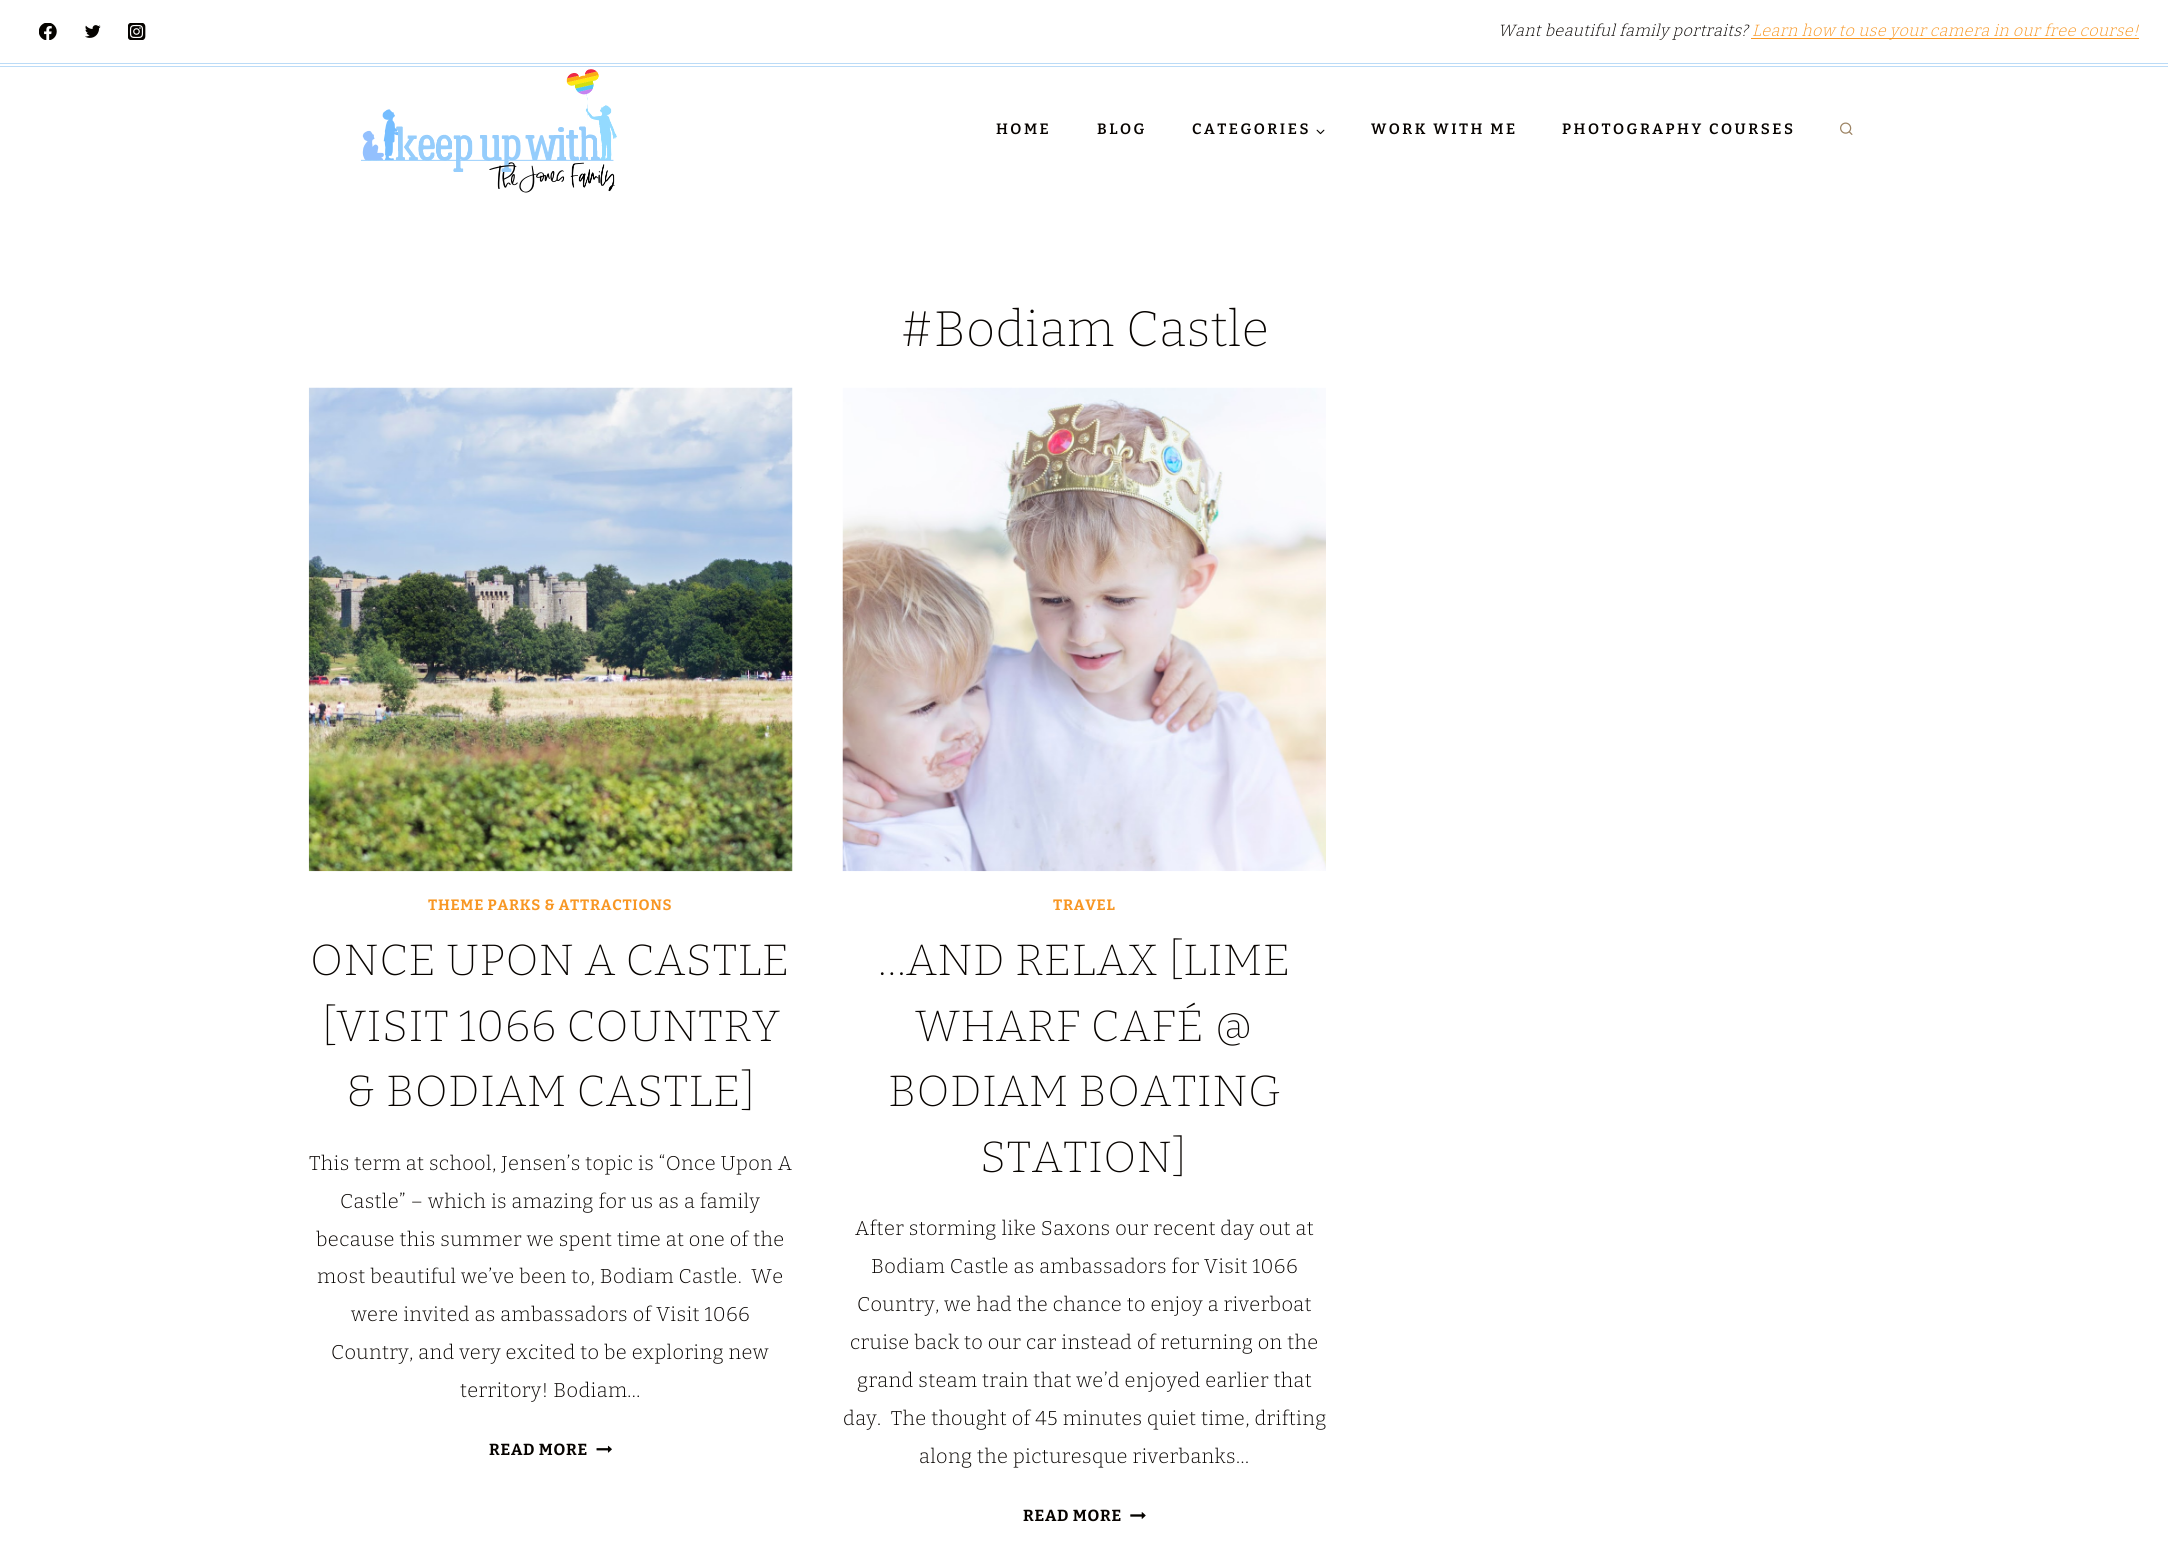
#include <cairo/cairo.h>
#include <math.h>
#include <stddef.h>

typedef struct { double x, y; const char *s; } line_t;
static cairo_t *cr;

static void rgb(unsigned color)
{
	cairo_set_source_rgb(cr, (color >> 16) / 255.0, (color >> 8 & 255) / 255.0, (color & 255) / 255.0);
}

static void tracked(double x, double y, const char *s, double letter, double word)
{
	cairo_move_to(cr, x, y);
	while (*s) {
		char ch[5] = {0};
		int n = 0;
		do ch[n++] = *s++; while ((*s & 0xC0) == 0x80);
		cairo_show_text(cr, ch);
		cairo_rel_move_to(cr, letter + word * (*ch == ' '), 0);
	}
}

static void image(const char *path, double x, double y, double w, double h)
{
	cairo_surface_t *image = cairo_image_surface_create_from_png(path);
	cairo_save(cr);
	cairo_set_source_surface(cr, image, x, y);
	cairo_rectangle(cr, x, y, w, h);
	cairo_fill(cr);
	cairo_restore(cr);
	cairo_surface_destroy(image);
}

int main(void) {
	cairo_surface_t *surface = cairo_image_surface_create(CAIRO_FORMAT_RGB24, 2168, 1565);
	cr = cairo_create(surface);
	cairo_font_options_t *options = cairo_font_options_create();
	cairo_font_options_set_hint_metrics(options, CAIRO_HINT_METRICS_OFF);
	cairo_font_options_set_hint_style(options, CAIRO_HINT_STYLE_NONE);
	cairo_set_font_options(cr, options);
	cairo_set_miter_limit(cr, 4);
	rgb(0xffffff);
	cairo_paint(cr);
	rgb(0xbbdbf7);
	cairo_rectangle(cr, 0, 63, 2168, 1);
	cairo_fill(cr);
	cairo_rectangle(cr, 0, 66, 2168, 1);
	cairo_fill(cr);
	image("img/1.png", 39, 23, 18, 17);
	image("img/2.png", 85, 25, 16, 13);
	image("img/3.png", 128, 23, 18, 17);
	rgb(0xf89724);
	cairo_rectangle(cr, 1751, 38, 388, 1);
	cairo_fill(cr);
	image("img/4.png", 361, 69, 256, 124);
	image("img/5.png", 1316, 129, 9, 6);
	image("img/6.png", 1840, 122, 13, 13);
	image("img/7.png", 308, 387, 485, 485);
	image("img/8.png", 596, 1445, 16, 8);
	image("img/9.png", 842, 387, 484, 485);
	image("img/10.png", 1130, 1512, 16, 7);
	cairo_select_font_face(cr, "Bitter Light", CAIRO_FONT_SLANT_ITALIC, CAIRO_FONT_WEIGHT_NORMAL);
	cairo_set_font_size(cr, 16.25);
	rgb(0x070300);
	tracked(1498, 36, "Want beautiful family portraits?", 0.4, 0);
	rgb(0xf89724);
	tracked(1752, 36, "Learn how to use your camera in our free course!", 0.4, 0);
	cairo_select_font_face(cr, "Bitter SemiBold", CAIRO_FONT_SLANT_NORMAL, CAIRO_FONT_WEIGHT_NORMAL);
	cairo_set_font_size(cr, 15);
	rgb(0x070300);
	{
		static const line_t items[] = {
			{996, 134, "HOME"},
			{1097, 134, "BLOG"},
			{1192, 134, "CATEGORIES"},
			{1371, 134, "WORK WITH ME"},
			{1562, 134, "PHOTOGRAPHY COURSES"},
		};
		for (size_t i = 0; i < sizeof items / sizeof *items; i++) {
			tracked(items[i].x, items[i].y, items[i].s, 2.5, 0);
		}
	}
	cairo_select_font_face(cr, "Bitter ExtraLight", CAIRO_FONT_SLANT_NORMAL, CAIRO_FONT_WEIGHT_NORMAL);
	cairo_set_font_size(cr, 50);
	tracked(900, 346, "#Bodiam Castle", 0.4, 0);
	cairo_select_font_face(cr, "Bitter", CAIRO_FONT_SLANT_NORMAL, CAIRO_FONT_WEIGHT_BOLD);
	cairo_set_font_size(cr, 15);
	rgb(0xf89724);
	tracked(428, 910, "THEME PARKS & ATTRACTIONS", 0.75, 0);
	cairo_select_font_face(cr, "Bitter ExtraLight", CAIRO_FONT_SLANT_NORMAL, CAIRO_FONT_WEIGHT_NORMAL);
	cairo_set_font_size(cr, 43.75);
	rgb(0x070300);
	{
		static const line_t items[] = {
			{310, 975, "ONCE UPON A CASTLE"},
			{321, 1041, "[VISIT 1066 COUNTRY"},
			{345, 1106, "& BODIAM CASTLE]"},
		};
		for (size_t i = 0; i < sizeof items / sizeof *items; i++) {
			tracked(items[i].x, items[i].y, items[i].s, 0.4, 0);
		}
	}
	cairo_select_font_face(cr, "Bitter Light", CAIRO_FONT_SLANT_NORMAL, CAIRO_FONT_WEIGHT_NORMAL);
	cairo_set_font_size(cr, 20);
	{
		static const line_t items[] = {
			{309, 1170, "This term at school, Jensen’s topic is “Once Upon A"},
			{340, 1208, "Castle” – which is amazing for us as a family"},
			{316, 1246, "because this summer we spent time at one of the"},
			{317, 1283, "most beautiful we’ve been to, Bodiam Castle.  We"},
			{351, 1321, "were invited as ambassadors of Visit 1066"},
			{331, 1359, "Country, and very excited to be exploring new"},
			{460, 1397, "territory! Bodiam…"},
		};
		for (size_t i = 0; i < sizeof items / sizeof *items; i++) {
			tracked(items[i].x, items[i].y, items[i].s, 0.4, 0);
		}
	}
	cairo_select_font_face(cr, "Bitter", CAIRO_FONT_SLANT_NORMAL, CAIRO_FONT_WEIGHT_BOLD);
	cairo_set_font_size(cr, 16);
	tracked(489, 1455, "READ MORE", 0.75, 0);
	cairo_set_font_size(cr, 15);
	rgb(0xf89724);
	tracked(1053, 910, "TRAVEL", 0.75, 0);
	cairo_select_font_face(cr, "Bitter ExtraLight", CAIRO_FONT_SLANT_NORMAL, CAIRO_FONT_WEIGHT_NORMAL);
	cairo_set_font_size(cr, 43.75);
	rgb(0x070300);
	{
		static const line_t items[] = {
			{878, 975, "…AND RELAX [LIME"},
			{915, 1041, "WHARF CAFÉ @"},
			{888, 1106, "BODIAM BOATING"},
			{980, 1172, "STATION]"},
		};
		for (size_t i = 0; i < sizeof items / sizeof *items; i++) {
			tracked(items[i].x, items[i].y, items[i].s, 0.4, 0);
		}
	}
	cairo_select_font_face(cr, "Bitter Light", CAIRO_FONT_SLANT_NORMAL, CAIRO_FONT_WEIGHT_NORMAL);
	cairo_set_font_size(cr, 20);
	{
		static const line_t items[] = {
			{855, 1235, "After storming like Saxons our recent day out at"},
			{871, 1273, "Bodiam Castle as ambassadors for Visit 1066"},
			{857, 1311, "Country, we had the chance to enjoy a riverboat"},
			{850, 1349, "cruise back to our car instead of returning on the"},
			{857, 1387, "grand steam train that we’d enjoyed earlier that"},
			{843, 1425, "day.  The thought of 45 minutes quiet time, drifting"},
			{919, 1463, "along the picturesque riverbanks…"},
		};
		for (size_t i = 0; i < sizeof items / sizeof *items; i++) {
			tracked(items[i].x, items[i].y, items[i].s, 0.4, 0);
		}
	}
	cairo_select_font_face(cr, "Bitter", CAIRO_FONT_SLANT_NORMAL, CAIRO_FONT_WEIGHT_BOLD);
	cairo_set_font_size(cr, 16);
	tracked(1023, 1521, "READ MORE", 0.75, 0);
	cairo_surface_write_to_png(surface, "page.png");
	cairo_font_options_destroy(options);
	cairo_destroy(cr);
	cairo_surface_destroy(surface);
	return 0;
}
